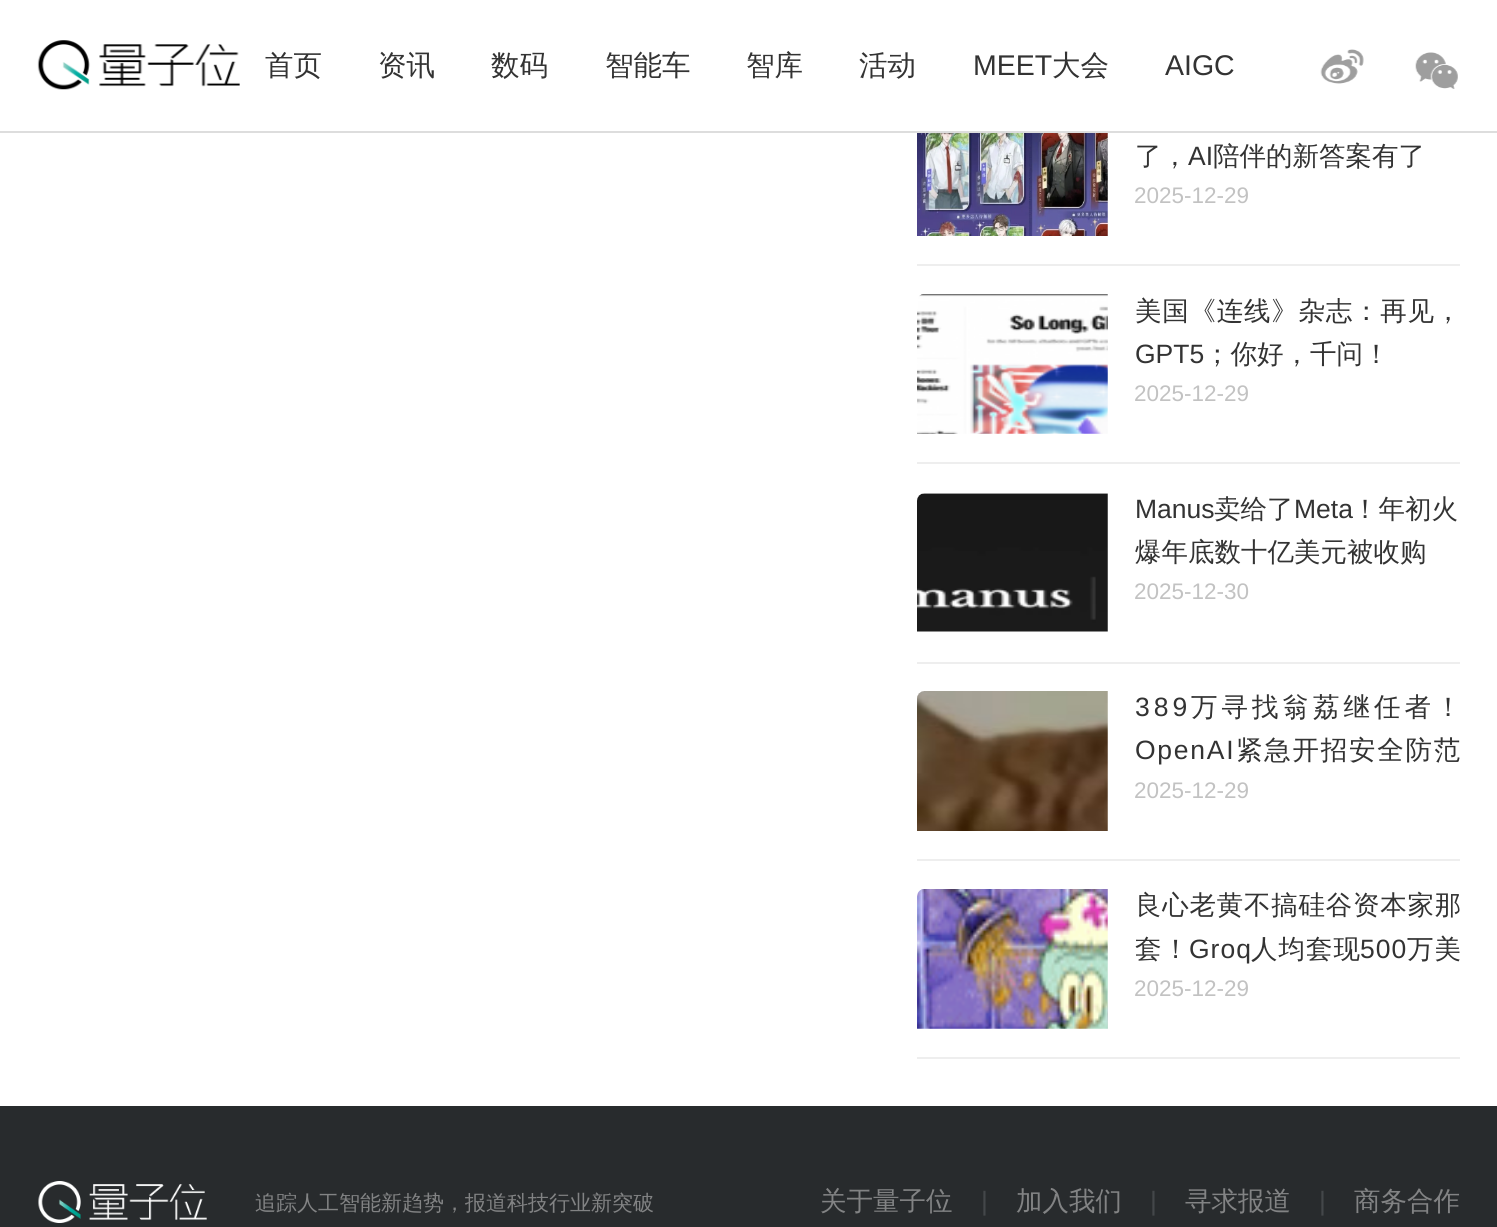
#include <cairo/cairo.h>
#include <math.h>
#include <stddef.h>

typedef struct { double x, y; const char *s; } line_t;
static cairo_t *cr;

static void rgb(unsigned color)
{
	cairo_set_source_rgb(cr, (color >> 16) / 255.0, (color >> 8 & 255) / 255.0, (color & 255) / 255.0);
}

static void tracked(double x, double y, const char *s, double letter, double word)
{
	cairo_move_to(cr, x, y);
	while (*s) {
		char ch[5] = {0};
		int n = 0;
		do ch[n++] = *s++; while ((*s & 0xC0) == 0x80);
		cairo_show_text(cr, ch);
		cairo_rel_move_to(cr, letter + word * (*ch == ' '), 0);
	}
}

static void image(const char *path, double x, double y, double w, double h)
{
	cairo_surface_t *image = cairo_image_surface_create_from_png(path);
	cairo_save(cr);
	cairo_set_source_surface(cr, image, x, y);
	cairo_rectangle(cr, x, y, w, h);
	cairo_fill(cr);
	cairo_restore(cr);
	cairo_surface_destroy(image);
}

int main(void) {
	cairo_surface_t *surface = cairo_image_surface_create(CAIRO_FORMAT_RGB24, 1497, 1227);
	cr = cairo_create(surface);
	cairo_font_options_t *options = cairo_font_options_create();
	cairo_font_options_set_hint_metrics(options, CAIRO_HINT_METRICS_OFF);
	cairo_font_options_set_hint_style(options, CAIRO_HINT_STYLE_NONE);
	cairo_set_font_options(cr, options);
	cairo_set_miter_limit(cr, 4);
	rgb(0xffffff);
	cairo_paint(cr);
	image("img/1.png", 37, 40, 203, 50);
	image("img/2.png", 1320, 49, 44, 35);
	image("img/3.png", 1415, 52, 43, 37);
	rgb(0xdddddd);
	cairo_rectangle(cr, 0, 131, 1497, 2);
	cairo_fill(cr);
	rgb(0xeeeeee);
	cairo_rectangle(cr, 917, 264, 543, 2);
	cairo_fill(cr);
	image("img/4.png", 917, 133, 191, 103);
	cairo_rectangle(cr, 917, 462, 543, 2);
	cairo_fill(cr);
	image("img/5.png", 917, 294, 191, 140);
	cairo_rectangle(cr, 917, 662, 543, 2);
	cairo_fill(cr);
	image("img/6.png", 917, 493, 191, 139);
	cairo_rectangle(cr, 917, 859, 543, 2);
	cairo_fill(cr);
	image("img/7.png", 917, 691, 191, 140);
	cairo_rectangle(cr, 917, 1057, 543, 2);
	cairo_fill(cr);
	image("img/8.png", 917, 889, 191, 140);
	rgb(0x282b2d);
	cairo_rectangle(cr, 0, 1106, 1497, 121);
	cairo_fill(cr);
	image("img/9.png", 38, 1181, 169, 42);
	cairo_select_font_face(cr, "WenQuanYi Zen Hei Medium", CAIRO_FONT_SLANT_NORMAL, CAIRO_FONT_WEIGHT_NORMAL);
	cairo_set_font_size(cr, 28.5);
	rgb(0x333333);
	{
		static const line_t items[] = {
			{265, 75, "首页"},
			{378, 75, "资讯"},
			{491, 75, "数码"},
			{605, 75, "智能车"},
			{746, 75, "智库"},
			{859, 75, "活动"},
		};
		for (size_t i = 0; i < sizeof items / sizeof *items; i++) {
			cairo_move_to(cr, items[i].x, items[i].y);
			cairo_show_text(cr, items[i].s);
		}
	}
	cairo_select_font_face(cr, "Liberation Sans", CAIRO_FONT_SLANT_NORMAL, CAIRO_FONT_WEIGHT_NORMAL);
	cairo_move_to(cr, 973, 75);
	cairo_show_text(cr, "MEET");
	cairo_select_font_face(cr, "WenQuanYi Zen Hei Medium", CAIRO_FONT_SLANT_NORMAL, CAIRO_FONT_WEIGHT_NORMAL);
	cairo_move_to(cr, 1052, 75);
	cairo_show_text(cr, "大会");
	cairo_select_font_face(cr, "Liberation Sans", CAIRO_FONT_SLANT_NORMAL, CAIRO_FONT_WEIGHT_NORMAL);
	cairo_move_to(cr, 1165, 75);
	cairo_show_text(cr, "AIGC");
	cairo_select_font_face(cr, "WenQuanYi Zen Hei Medium", CAIRO_FONT_SLANT_NORMAL, CAIRO_FONT_WEIGHT_NORMAL);
	cairo_set_font_size(cr, 26.5);
	cairo_move_to(cr, 1135, 165);
	cairo_show_text(cr, "了，");
	cairo_select_font_face(cr, "Liberation Sans", CAIRO_FONT_SLANT_NORMAL, CAIRO_FONT_WEIGHT_NORMAL);
	cairo_move_to(cr, 1188, 165);
	cairo_show_text(cr, "AI");
	cairo_select_font_face(cr, "WenQuanYi Zen Hei Medium", CAIRO_FONT_SLANT_NORMAL, CAIRO_FONT_WEIGHT_NORMAL);
	cairo_move_to(cr, 1213, 165);
	cairo_show_text(cr, "陪伴的新答案有了");
	cairo_select_font_face(cr, "Liberation Sans", CAIRO_FONT_SLANT_NORMAL, CAIRO_FONT_WEIGHT_NORMAL);
	cairo_set_font_size(cr, 22.5);
	rgb(0xc2c2c2);
	cairo_move_to(cr, 1134, 203);
	cairo_show_text(cr, "2025-12-29");
	cairo_select_font_face(cr, "WenQuanYi Zen Hei Medium", CAIRO_FONT_SLANT_NORMAL, CAIRO_FONT_WEIGHT_NORMAL);
	cairo_set_font_size(cr, 26.5);
	rgb(0x333333);
	tracked(1135, 320, "美国《连线》杂志：再见，", 0.75, 0);
	cairo_select_font_face(cr, "Liberation Sans", CAIRO_FONT_SLANT_NORMAL, CAIRO_FONT_WEIGHT_NORMAL);
	cairo_move_to(cr, 1135, 363);
	cairo_show_text(cr, "GPT5");
	cairo_select_font_face(cr, "WenQuanYi Zen Hei Medium", CAIRO_FONT_SLANT_NORMAL, CAIRO_FONT_WEIGHT_NORMAL);
	cairo_move_to(cr, 1204, 363);
	cairo_show_text(cr, "；你好，千问！");
	cairo_select_font_face(cr, "Liberation Sans", CAIRO_FONT_SLANT_NORMAL, CAIRO_FONT_WEIGHT_NORMAL);
	cairo_set_font_size(cr, 22.5);
	rgb(0xc2c2c2);
	cairo_move_to(cr, 1134, 401);
	cairo_show_text(cr, "2025-12-29");
	cairo_set_font_size(cr, 26.5);
	rgb(0x333333);
	cairo_move_to(cr, 1135, 518);
	cairo_show_text(cr, "Manus");
	cairo_select_font_face(cr, "WenQuanYi Zen Hei Medium", CAIRO_FONT_SLANT_NORMAL, CAIRO_FONT_WEIGHT_NORMAL);
	cairo_move_to(cr, 1214, 518);
	cairo_show_text(cr, "卖给了");
	cairo_select_font_face(cr, "Liberation Sans", CAIRO_FONT_SLANT_NORMAL, CAIRO_FONT_WEIGHT_NORMAL);
	cairo_move_to(cr, 1294, 518);
	cairo_show_text(cr, "Meta");
	cairo_select_font_face(cr, "WenQuanYi Zen Hei Medium", CAIRO_FONT_SLANT_NORMAL, CAIRO_FONT_WEIGHT_NORMAL);
	cairo_move_to(cr, 1352, 518);
	cairo_show_text(cr, "！年初火");
	cairo_move_to(cr, 1135, 561);
	cairo_show_text(cr, "爆年底数十亿美元被收购");
	cairo_select_font_face(cr, "Liberation Sans", CAIRO_FONT_SLANT_NORMAL, CAIRO_FONT_WEIGHT_NORMAL);
	cairo_set_font_size(cr, 22.5);
	rgb(0xc2c2c2);
	cairo_move_to(cr, 1134, 599);
	cairo_show_text(cr, "2025-12-30");
	cairo_set_font_size(cr, 26.5);
	rgb(0x333333);
	tracked(1135, 716, "389", 4, 0);
	cairo_select_font_face(cr, "WenQuanYi Zen Hei Medium", CAIRO_FONT_SLANT_NORMAL, CAIRO_FONT_WEIGHT_NORMAL);
	tracked(1191, 716, "万寻找翁荔继任者！", 4, 0);
	cairo_select_font_face(cr, "Liberation Sans", CAIRO_FONT_SLANT_NORMAL, CAIRO_FONT_WEIGHT_NORMAL);
	tracked(1135, 759, "OpenAI", 1.75, 0);
	cairo_select_font_face(cr, "WenQuanYi Zen Hei Medium", CAIRO_FONT_SLANT_NORMAL, CAIRO_FONT_WEIGHT_NORMAL);
	tracked(1236, 759, "紧急开招安全防范", 1.75, 0);
	cairo_select_font_face(cr, "Liberation Sans", CAIRO_FONT_SLANT_NORMAL, CAIRO_FONT_WEIGHT_NORMAL);
	cairo_set_font_size(cr, 22.5);
	rgb(0xc2c2c2);
	cairo_move_to(cr, 1134, 798);
	cairo_show_text(cr, "2025-12-29");
	cairo_select_font_face(cr, "WenQuanYi Zen Hei Medium", CAIRO_FONT_SLANT_NORMAL, CAIRO_FONT_WEIGHT_NORMAL);
	cairo_set_font_size(cr, 26.5);
	rgb(0x333333);
	tracked(1135, 914, "良心老黄不搞硅谷资本家那", 0.75, 0);
	tracked(1135, 958, "套！", 1, 0);
	cairo_select_font_face(cr, "Liberation Sans", CAIRO_FONT_SLANT_NORMAL, CAIRO_FONT_WEIGHT_NORMAL);
	tracked(1189, 958, "Groq", 1, 0);
	cairo_select_font_face(cr, "WenQuanYi Zen Hei Medium", CAIRO_FONT_SLANT_NORMAL, CAIRO_FONT_WEIGHT_NORMAL);
	tracked(1251, 958, "人均套现", 1, 0);
	cairo_select_font_face(cr, "Liberation Sans", CAIRO_FONT_SLANT_NORMAL, CAIRO_FONT_WEIGHT_NORMAL);
	tracked(1360, 958, "500", 1, 0);
	cairo_select_font_face(cr, "WenQuanYi Zen Hei Medium", CAIRO_FONT_SLANT_NORMAL, CAIRO_FONT_WEIGHT_NORMAL);
	tracked(1407, 958, "万美", 1, 0);
	cairo_select_font_face(cr, "Liberation Sans", CAIRO_FONT_SLANT_NORMAL, CAIRO_FONT_WEIGHT_NORMAL);
	cairo_set_font_size(cr, 22.5);
	rgb(0xc2c2c2);
	cairo_move_to(cr, 1134, 996);
	cairo_show_text(cr, "2025-12-29");
	cairo_select_font_face(cr, "WenQuanYi Zen Hei Medium", CAIRO_FONT_SLANT_NORMAL, CAIRO_FONT_WEIGHT_NORMAL);
	cairo_set_font_size(cr, 21);
	rgb(0x828384);
	cairo_move_to(cr, 255, 1210);
	cairo_show_text(cr, "追踪人工智能新趋势，报道科技行业新突破");
	cairo_set_font_size(cr, 26.5);
	cairo_move_to(cr, 820, 1210);
	cairo_show_text(cr, "关于量子位");
	cairo_select_font_face(cr, "Liberation Sans", CAIRO_FONT_SLANT_NORMAL, CAIRO_FONT_WEIGHT_NORMAL);
	rgb(0x44474a);
	cairo_move_to(cr, 981, 1210);
	cairo_show_text(cr, "|");
	cairo_select_font_face(cr, "WenQuanYi Zen Hei Medium", CAIRO_FONT_SLANT_NORMAL, CAIRO_FONT_WEIGHT_NORMAL);
	rgb(0x828384);
	cairo_move_to(cr, 1016, 1210);
	cairo_show_text(cr, "加入我们");
	cairo_select_font_face(cr, "Liberation Sans", CAIRO_FONT_SLANT_NORMAL, CAIRO_FONT_WEIGHT_NORMAL);
	rgb(0x44474a);
	cairo_move_to(cr, 1150, 1210);
	cairo_show_text(cr, "|");
	cairo_select_font_face(cr, "WenQuanYi Zen Hei Medium", CAIRO_FONT_SLANT_NORMAL, CAIRO_FONT_WEIGHT_NORMAL);
	rgb(0x828384);
	cairo_move_to(cr, 1185, 1210);
	cairo_show_text(cr, "寻求报道");
	cairo_select_font_face(cr, "Liberation Sans", CAIRO_FONT_SLANT_NORMAL, CAIRO_FONT_WEIGHT_NORMAL);
	rgb(0x44474a);
	cairo_move_to(cr, 1319, 1210);
	cairo_show_text(cr, "|");
	cairo_select_font_face(cr, "WenQuanYi Zen Hei Medium", CAIRO_FONT_SLANT_NORMAL, CAIRO_FONT_WEIGHT_NORMAL);
	rgb(0x828384);
	cairo_move_to(cr, 1354, 1210);
	cairo_show_text(cr, "商务合作");
	cairo_surface_write_to_png(surface, "page.png");
	cairo_font_options_destroy(options);
	cairo_destroy(cr);
	cairo_surface_destroy(surface);
	return 0;
}
